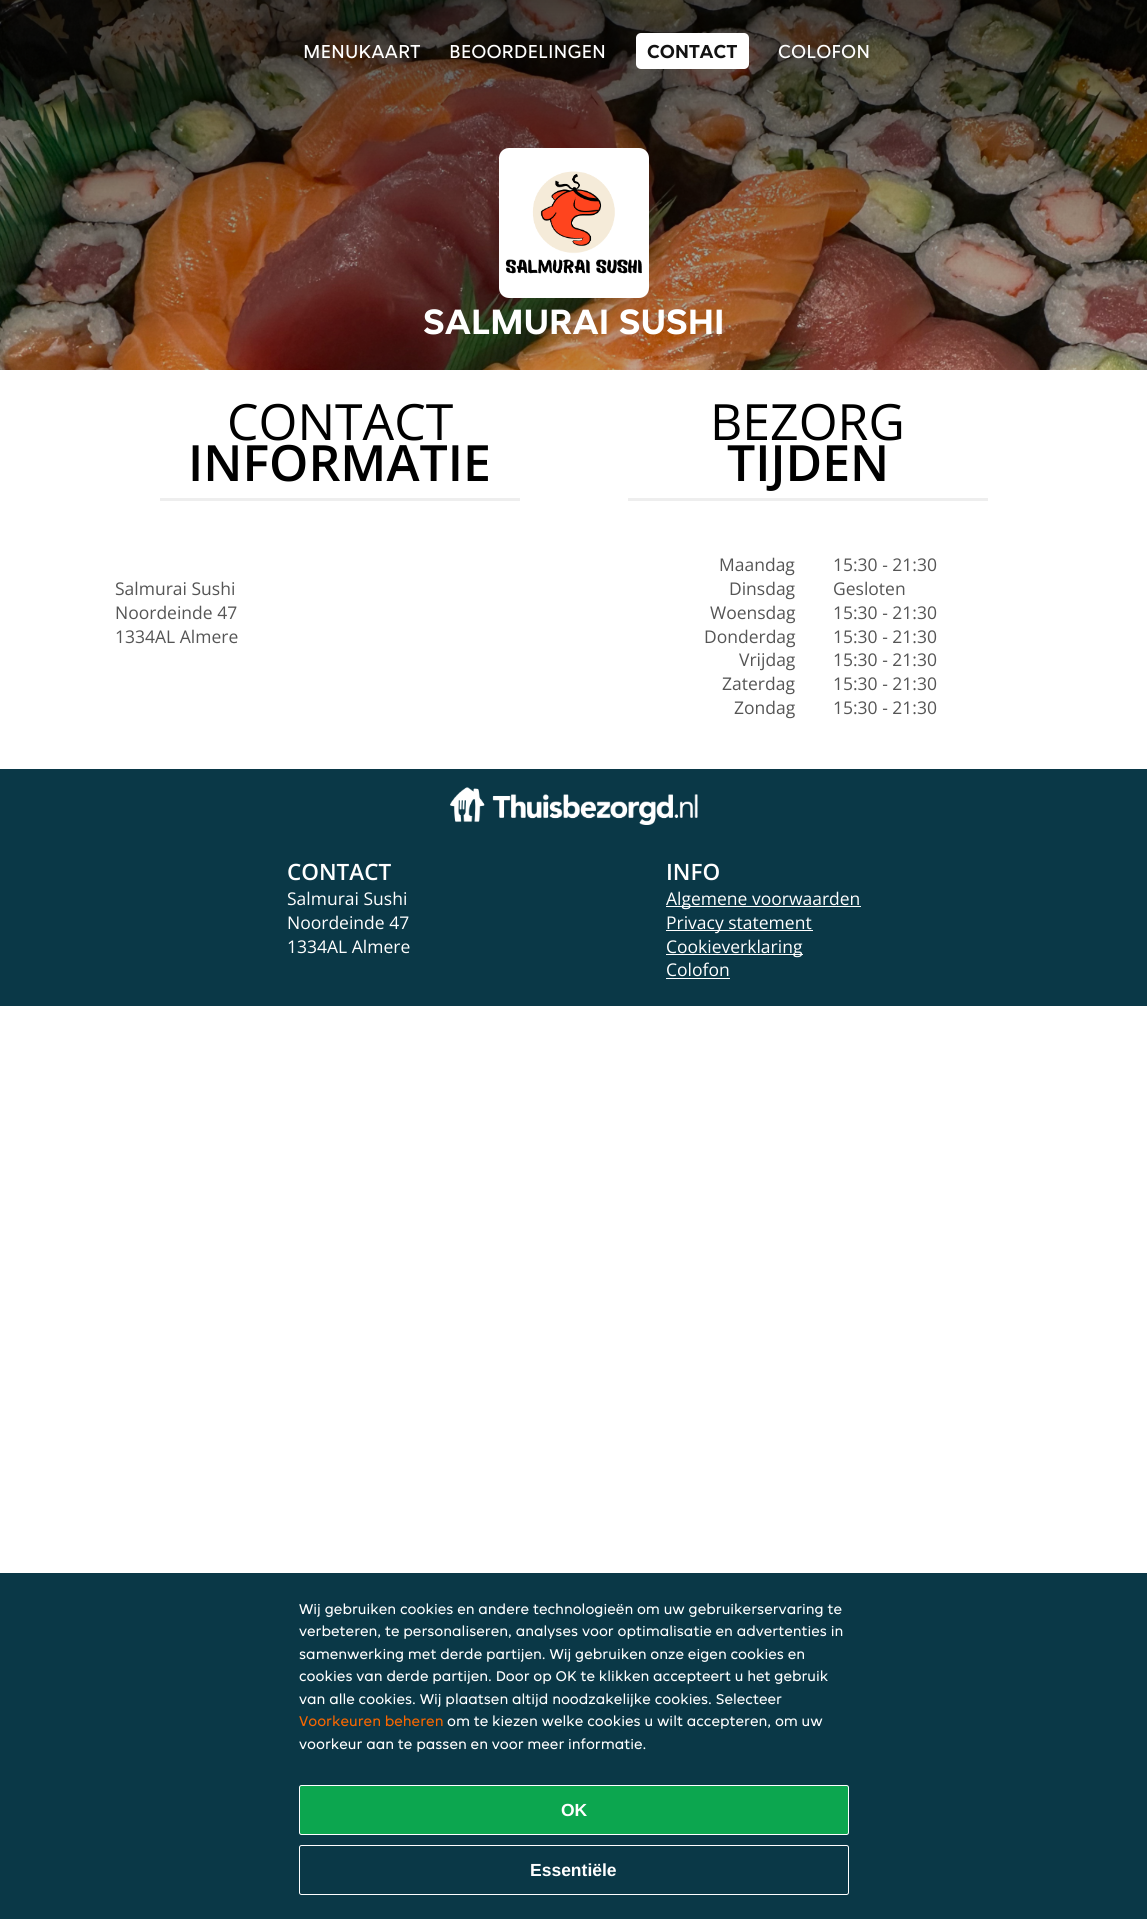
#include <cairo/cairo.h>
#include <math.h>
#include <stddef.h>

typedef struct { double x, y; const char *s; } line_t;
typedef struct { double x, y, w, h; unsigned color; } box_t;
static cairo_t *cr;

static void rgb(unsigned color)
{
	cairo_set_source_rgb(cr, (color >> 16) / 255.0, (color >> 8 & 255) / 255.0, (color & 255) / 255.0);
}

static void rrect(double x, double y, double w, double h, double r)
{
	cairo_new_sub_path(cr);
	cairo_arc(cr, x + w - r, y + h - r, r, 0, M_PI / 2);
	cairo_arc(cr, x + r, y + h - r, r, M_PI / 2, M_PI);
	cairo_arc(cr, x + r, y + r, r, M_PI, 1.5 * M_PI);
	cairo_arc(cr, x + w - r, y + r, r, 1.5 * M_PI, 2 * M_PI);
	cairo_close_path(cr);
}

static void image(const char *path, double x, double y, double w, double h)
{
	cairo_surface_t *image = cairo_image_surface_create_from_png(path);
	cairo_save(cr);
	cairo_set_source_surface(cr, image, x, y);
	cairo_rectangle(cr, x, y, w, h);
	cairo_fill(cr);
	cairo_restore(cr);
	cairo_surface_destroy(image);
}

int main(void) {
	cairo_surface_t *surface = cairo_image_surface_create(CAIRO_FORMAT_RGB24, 1147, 1919);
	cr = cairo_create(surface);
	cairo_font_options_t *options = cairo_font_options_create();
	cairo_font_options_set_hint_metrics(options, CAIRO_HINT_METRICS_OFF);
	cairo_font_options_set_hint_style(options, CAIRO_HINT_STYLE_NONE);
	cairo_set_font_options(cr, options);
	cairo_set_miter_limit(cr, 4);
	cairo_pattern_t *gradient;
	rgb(0xffffff);
	cairo_paint(cr);
	image("img/1.png", 0, 0, 1147, 370);
	gradient = cairo_pattern_create_linear(574, 0, 574, 625);
	cairo_pattern_add_color_stop_rgba(gradient, 0, 0, 0, 0, 0.7);
	cairo_pattern_add_color_stop_rgba(gradient, 0.33, 0, 0, 0, 0.4);
	cairo_pattern_add_color_stop_rgba(gradient, 0.67, 0, 0, 0, 0.2);
	cairo_pattern_add_color_stop_rgba(gradient, 1, 0, 0, 0, 0);
	cairo_set_source(cr, gradient);
	cairo_pattern_destroy(gradient);
	cairo_rectangle(cr, 0, 0, 1147, 370);
	cairo_fill(cr);
	rgb(0xffffff);
	rrect(636, 33, 113, 36, 5);
	cairo_fill(cr);
	rrect(499, 148, 150, 150, 10);
	cairo_fill(cr);
	image("img/2.png", 505, 171, 137, 103);
	{
		static const box_t items[] = {
			{160, 498, 360, 3, 0xeeeeee},
			{628, 498, 360, 3, 0xeeeeee},
			{0, 769, 1147, 237, 0x0a3847},
		};
		for (size_t i = 0; i < sizeof items / sizeof *items; i++) {
			rgb(items[i].color);
			cairo_rectangle(cr, items[i].x, items[i].y, items[i].w, items[i].h);
			cairo_fill(cr);
		}
	}
	image("img/3.png", 450, 787, 248, 38);
	{
		static const box_t items[] = {
			{666, 906, 195, 1, 0xffffff},
			{666, 930, 147, 1, 0xffffff},
			{666, 954, 137, 1, 0xffffff},
			{666, 978, 64, 1, 0xffffff},
			{0, 1573, 1147, 346, 0x0a3847},
		};
		for (size_t i = 0; i < sizeof items / sizeof *items; i++) {
			rgb(items[i].color);
			cairo_rectangle(cr, items[i].x, items[i].y, items[i].w, items[i].h);
			cairo_fill(cr);
		}
	}
	rgb(0x0ca64f);
	rrect(299.5, 1785.5, 549, 49, 2);
	cairo_fill_preserve(cr);
	rgb(0xffffff);
	cairo_set_line_width(cr, 1);
	cairo_stroke(cr);
	rrect(299.5, 1845.5, 549, 49, 2);
	cairo_stroke(cr);
	cairo_select_font_face(cr, "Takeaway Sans", CAIRO_FONT_SLANT_NORMAL, CAIRO_FONT_WEIGHT_NORMAL);
	cairo_set_font_size(cr, 20);
	cairo_move_to(cr, 303, 58);
	cairo_show_text(cr, "MENUKAART");
	cairo_move_to(cr, 449, 58);
	cairo_show_text(cr, "BEOORDELINGEN");
	cairo_select_font_face(cr, "Takeaway Sans", CAIRO_FONT_SLANT_NORMAL, CAIRO_FONT_WEIGHT_BOLD);
	rgb(0x121212);
	cairo_move_to(cr, 647, 58);
	cairo_show_text(cr, "CONTACT");
	cairo_select_font_face(cr, "Takeaway Sans", CAIRO_FONT_SLANT_NORMAL, CAIRO_FONT_WEIGHT_NORMAL);
	rgb(0xffffff);
	cairo_move_to(cr, 778, 58);
	cairo_show_text(cr, "COLOFON");
	cairo_select_font_face(cr, "Takeaway Sans", CAIRO_FONT_SLANT_NORMAL, CAIRO_FONT_WEIGHT_BOLD);
	cairo_set_font_size(cr, 37.5);
	cairo_move_to(cr, 423, 334);
	cairo_show_text(cr, "SALMURAI SUSHI");
	cairo_select_font_face(cr, "Open Sans", CAIRO_FONT_SLANT_NORMAL, CAIRO_FONT_WEIGHT_NORMAL);
	cairo_set_font_size(cr, 50);
	rgb(0x000000);
	cairo_move_to(cr, 227, 440);
	cairo_show_text(cr, "CONTACT");
	cairo_select_font_face(cr, "Open Sans SemiBold", CAIRO_FONT_SLANT_NORMAL, CAIRO_FONT_WEIGHT_NORMAL);
	cairo_move_to(cr, 188, 481);
	cairo_show_text(cr, "INFORMATIE");
	cairo_select_font_face(cr, "Open Sans", CAIRO_FONT_SLANT_NORMAL, CAIRO_FONT_WEIGHT_NORMAL);
	cairo_set_font_size(cr, 17.5);
	rgb(0x555555);
	{
		static const line_t items[] = {
			{115, 595, "Salmurai Sushi"},
			{115, 619, "Noordeinde 47"},
			{115, 643, "1334AL Almere"},
		};
		for (size_t i = 0; i < sizeof items / sizeof *items; i++) {
			cairo_move_to(cr, items[i].x, items[i].y);
			cairo_show_text(cr, items[i].s);
		}
	}
	cairo_set_font_size(cr, 50);
	rgb(0x000000);
	cairo_move_to(cr, 710, 440);
	cairo_show_text(cr, "BEZORG");
	cairo_select_font_face(cr, "Open Sans SemiBold", CAIRO_FONT_SLANT_NORMAL, CAIRO_FONT_WEIGHT_NORMAL);
	cairo_move_to(cr, 727, 481);
	cairo_show_text(cr, "TIJDEN");
	cairo_select_font_face(cr, "Open Sans", CAIRO_FONT_SLANT_NORMAL, CAIRO_FONT_WEIGHT_NORMAL);
	cairo_set_font_size(cr, 17.5);
	rgb(0x555555);
	{
		static const line_t items[] = {
			{719, 571, "Maandag"},
			{833, 571, "15:30 - 21:30"},
			{729, 595, "Dinsdag"},
			{833, 595, "Gesloten"},
			{710, 619, "Woensdag"},
			{833, 619, "15:30 - 21:30"},
			{704, 643, "Donderdag"},
			{833, 643, "15:30 - 21:30"},
			{739, 666, "Vrijdag"},
			{833, 666, "15:30 - 21:30"},
			{722, 690, "Zaterdag"},
			{833, 690, "15:30 - 21:30"},
			{734, 714, "Zondag"},
			{833, 714, "15:30 - 21:30"},
		};
		for (size_t i = 0; i < sizeof items / sizeof *items; i++) {
			cairo_move_to(cr, items[i].x, items[i].y);
			cairo_show_text(cr, items[i].s);
		}
	}
	cairo_select_font_face(cr, "Open Sans SemiBold", CAIRO_FONT_SLANT_NORMAL, CAIRO_FONT_WEIGHT_NORMAL);
	cairo_set_font_size(cr, 22.5);
	rgb(0xffffff);
	cairo_move_to(cr, 287, 880);
	cairo_show_text(cr, "CONTACT");
	cairo_select_font_face(cr, "Open Sans", CAIRO_FONT_SLANT_NORMAL, CAIRO_FONT_WEIGHT_NORMAL);
	cairo_set_font_size(cr, 17.5);
	{
		static const line_t items[] = {
			{287, 905, "Salmurai Sushi"},
			{287, 929, "Noordeinde 47"},
			{287, 953, "1334AL Almere"},
		};
		for (size_t i = 0; i < sizeof items / sizeof *items; i++) {
			cairo_move_to(cr, items[i].x, items[i].y);
			cairo_show_text(cr, items[i].s);
		}
	}
	cairo_select_font_face(cr, "Open Sans SemiBold", CAIRO_FONT_SLANT_NORMAL, CAIRO_FONT_WEIGHT_NORMAL);
	cairo_set_font_size(cr, 22.5);
	cairo_move_to(cr, 666, 880);
	cairo_show_text(cr, "INFO");
	cairo_select_font_face(cr, "Open Sans", CAIRO_FONT_SLANT_NORMAL, CAIRO_FONT_WEIGHT_NORMAL);
	cairo_set_font_size(cr, 17.5);
	{
		static const line_t items[] = {
			{666, 905, "Algemene voorwaarden"},
			{666, 929, "Privacy statement"},
			{666, 953, "Cookieverklaring"},
			{666, 976, "Colofon"},
		};
		for (size_t i = 0; i < sizeof items / sizeof *items; i++) {
			cairo_move_to(cr, items[i].x, items[i].y);
			cairo_show_text(cr, items[i].s);
		}
	}
	cairo_select_font_face(cr, "Takeaway Sans", CAIRO_FONT_SLANT_NORMAL, CAIRO_FONT_WEIGHT_NORMAL);
	cairo_set_font_size(cr, 15);
	{
		static const line_t items[] = {
			{299, 1614, "Wij gebruiken cookies en andere technologieën om uw gebruikerservaring te"},
			{299, 1636, "verbeteren, te personaliseren, analyses voor optimalisatie en advertenties in"},
			{299, 1659, "samenwerking met derde partijen. Wij gebruiken onze eigen cookies en"},
			{299, 1681, "cookies van derde partijen. Door op OK te klikken accepteert u het gebruik"},
			{299, 1704, "van alle cookies. Wij plaatsen altijd noodzakelijke cookies. Selecteer"},
		};
		for (size_t i = 0; i < sizeof items / sizeof *items; i++) {
			cairo_move_to(cr, items[i].x, items[i].y);
			cairo_show_text(cr, items[i].s);
		}
	}
	rgb(0xf86600);
	cairo_move_to(cr, 299, 1726);
	cairo_show_text(cr, "Voorkeuren beheren");
	rgb(0xffffff);
	cairo_move_to(cr, 447, 1726);
	cairo_show_text(cr, "om te kiezen welke cookies u wilt accepteren, om uw");
	cairo_move_to(cr, 299, 1749);
	cairo_show_text(cr, "voorkeur aan te passen en voor meer informatie.");
	cairo_select_font_face(cr, "Liberation Sans", CAIRO_FONT_SLANT_NORMAL, CAIRO_FONT_WEIGHT_BOLD);
	cairo_set_font_size(cr, 17.5);
	cairo_move_to(cr, 561, 1816);
	cairo_show_text(cr, "OK");
	cairo_move_to(cr, 530, 1876);
	cairo_show_text(cr, "Essentiële");
	cairo_surface_write_to_png(surface, "page.png");
	cairo_font_options_destroy(options);
	cairo_destroy(cr);
	cairo_surface_destroy(surface);
	return 0;
}
